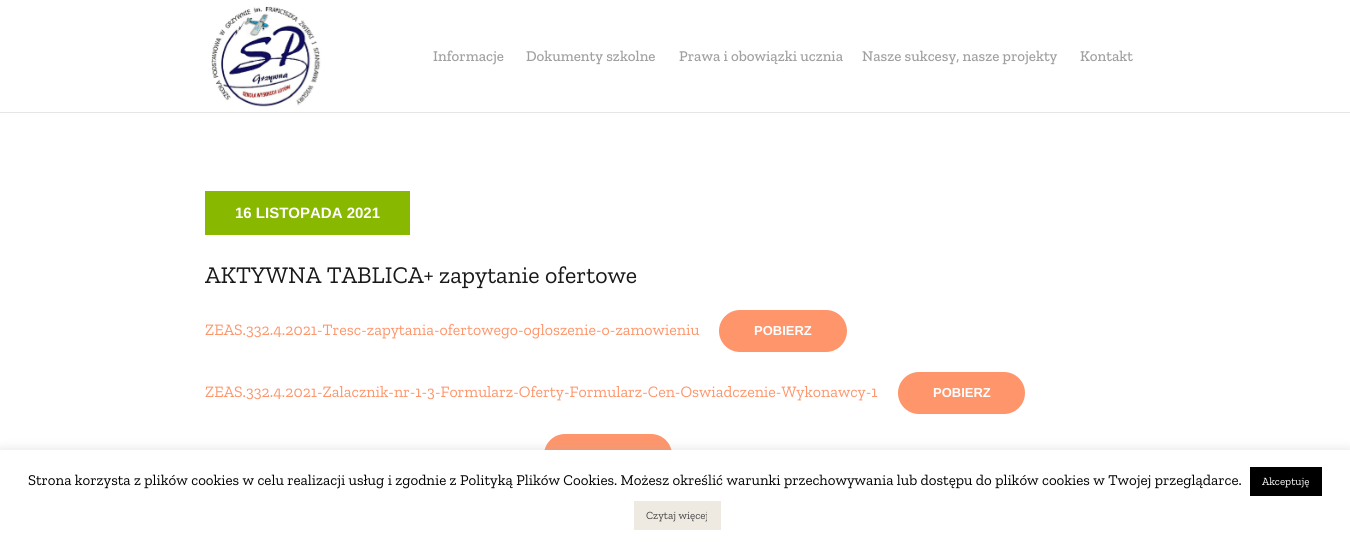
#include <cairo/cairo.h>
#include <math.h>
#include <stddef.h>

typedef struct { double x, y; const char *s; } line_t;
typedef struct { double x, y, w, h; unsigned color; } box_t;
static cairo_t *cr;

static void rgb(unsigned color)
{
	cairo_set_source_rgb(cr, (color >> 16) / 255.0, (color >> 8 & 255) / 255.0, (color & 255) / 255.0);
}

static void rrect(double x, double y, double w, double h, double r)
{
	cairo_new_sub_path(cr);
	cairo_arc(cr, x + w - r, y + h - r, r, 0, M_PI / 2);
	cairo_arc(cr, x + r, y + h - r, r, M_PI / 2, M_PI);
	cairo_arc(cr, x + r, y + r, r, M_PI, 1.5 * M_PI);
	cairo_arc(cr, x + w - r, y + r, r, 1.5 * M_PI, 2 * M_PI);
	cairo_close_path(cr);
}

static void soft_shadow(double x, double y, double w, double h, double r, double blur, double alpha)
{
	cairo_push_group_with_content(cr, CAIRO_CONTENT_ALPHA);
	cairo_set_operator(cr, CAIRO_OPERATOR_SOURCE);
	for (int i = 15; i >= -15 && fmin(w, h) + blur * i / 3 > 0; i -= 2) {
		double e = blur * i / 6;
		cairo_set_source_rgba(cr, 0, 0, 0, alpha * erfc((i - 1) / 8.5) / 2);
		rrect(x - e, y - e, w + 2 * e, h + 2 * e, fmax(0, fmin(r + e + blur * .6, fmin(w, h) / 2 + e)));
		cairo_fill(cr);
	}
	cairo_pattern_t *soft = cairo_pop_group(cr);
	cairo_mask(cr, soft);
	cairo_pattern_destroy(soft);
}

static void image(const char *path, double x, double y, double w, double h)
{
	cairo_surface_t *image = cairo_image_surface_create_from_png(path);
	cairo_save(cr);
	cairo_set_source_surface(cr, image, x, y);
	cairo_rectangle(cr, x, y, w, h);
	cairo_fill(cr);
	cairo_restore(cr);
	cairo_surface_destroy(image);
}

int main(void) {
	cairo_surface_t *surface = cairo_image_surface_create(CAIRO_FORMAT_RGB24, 1350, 542);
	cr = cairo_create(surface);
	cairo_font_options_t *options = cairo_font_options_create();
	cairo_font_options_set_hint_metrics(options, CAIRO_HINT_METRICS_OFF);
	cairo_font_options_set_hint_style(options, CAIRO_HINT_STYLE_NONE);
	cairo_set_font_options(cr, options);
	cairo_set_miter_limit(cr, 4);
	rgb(0xffffff);
	cairo_paint(cr);
	rgb(0xe6e6e6);
	cairo_rectangle(cr, 0, 112, 1350, 1);
	cairo_fill(cr);
	image("img/1.png", 211, 6, 110, 101);
	rgb(0x88b800);
	cairo_rectangle(cr, 205, 191, 205, 44);
	cairo_fill(cr);
	rgb(0xfe956b);
	rrect(719, 310, 128, 42, 21);
	cairo_fill(cr);
	rrect(898, 372, 127, 42, 21);
	cairo_fill(cr);
	rrect(544, 434, 128, 42, 21);
	cairo_fill(cr);
	rgb(0xacabab);
	soft_shadow(0, 449, 1350, 92, 0, 5, 0.3);
	{
		static const box_t items[] = {
			{0, 450, 1350, 92, 0xffffff},
			{1250, 467, 72, 29, 0x000000},
			{634, 501, 87, 29, 0xefeae1},
		};
		for (size_t i = 0; i < sizeof items / sizeof *items; i++) {
			rgb(items[i].color);
			cairo_rectangle(cr, items[i].x, items[i].y, items[i].w, items[i].h);
			cairo_fill(cr);
		}
	}
	cairo_select_font_face(cr, "Zilla Slab Medium", CAIRO_FONT_SLANT_NORMAL, CAIRO_FONT_WEIGHT_NORMAL);
	cairo_set_font_size(cr, 15);
	rgb(0xa0a0a0);
	{
		static const line_t items[] = {
			{433, 61, "Informacje"},
			{526, 61, "Dokumenty szkolne"},
			{679, 61, "Prawa i obowiązki ucznia"},
			{862, 61, "Nasze sukcesy, nasze projekty"},
			{1080, 61, "Kontakt"},
		};
		for (size_t i = 0; i < sizeof items / sizeof *items; i++) {
			cairo_move_to(cr, items[i].x, items[i].y);
			cairo_show_text(cr, items[i].s);
		}
	}
	cairo_select_font_face(cr, "Liberation Sans", CAIRO_FONT_SLANT_NORMAL, CAIRO_FONT_WEIGHT_BOLD);
	rgb(0xffffff);
	cairo_move_to(cr, 235, 218);
	cairo_show_text(cr, "16 LISTOPADA 2021");
	cairo_select_font_face(cr, "Zilla Slab", CAIRO_FONT_SLANT_NORMAL, CAIRO_FONT_WEIGHT_NORMAL);
	cairo_set_font_size(cr, 24);
	rgb(0x191919);
	cairo_move_to(cr, 205, 283);
	cairo_show_text(cr, "AKTYWNA TABLICA+ zapytanie ofertowe");
	cairo_set_font_size(cr, 16);
	rgb(0xfe956b);
	cairo_move_to(cr, 205, 335);
	cairo_show_text(cr, "ZEAS.332.4.2021-Tresc-zapytania-ofertowego-ogloszenie-o-zamowieniu");
	cairo_select_font_face(cr, "Liberation Sans", CAIRO_FONT_SLANT_NORMAL, CAIRO_FONT_WEIGHT_BOLD);
	cairo_set_font_size(cr, 13);
	rgb(0xffffff);
	cairo_move_to(cr, 754, 335);
	cairo_show_text(cr, "POBIERZ");
	cairo_select_font_face(cr, "Zilla Slab", CAIRO_FONT_SLANT_NORMAL, CAIRO_FONT_WEIGHT_NORMAL);
	cairo_set_font_size(cr, 16);
	rgb(0xfe956b);
	cairo_move_to(cr, 205, 397);
	cairo_show_text(cr, "ZEAS.332.4.2021-Zalacznik-nr-1-3-Formularz-Oferty-Formularz-Cen-Oswiadczenie-Wykonawcy-1");
	cairo_select_font_face(cr, "Liberation Sans", CAIRO_FONT_SLANT_NORMAL, CAIRO_FONT_WEIGHT_BOLD);
	cairo_set_font_size(cr, 13);
	rgb(0xffffff);
	cairo_move_to(cr, 933, 397);
	cairo_show_text(cr, "POBIERZ");
	cairo_select_font_face(cr, "Zilla Slab", CAIRO_FONT_SLANT_NORMAL, CAIRO_FONT_WEIGHT_NORMAL);
	cairo_set_font_size(cr, 15);
	rgb(0x000000);
	cairo_move_to(cr, 28, 485);
	cairo_show_text(cr, "Strona korzysta z plików cookies w celu realizacji usług i zgodnie z Polityką Plików Cookies. Możesz określić warunki przechowywania lub dostępu do plików cookies w Twojej przeglądarce.");
	cairo_set_font_size(cr, 11);
	rgb(0xffffff);
	cairo_move_to(cr, 1262, 485);
	cairo_show_text(cr, "Akceptuję");
	rgb(0x444444);
	cairo_move_to(cr, 646, 519);
	cairo_show_text(cr, "Czytaj więcej");
	cairo_surface_write_to_png(surface, "page.png");
	cairo_font_options_destroy(options);
	cairo_destroy(cr);
	cairo_surface_destroy(surface);
	return 0;
}
